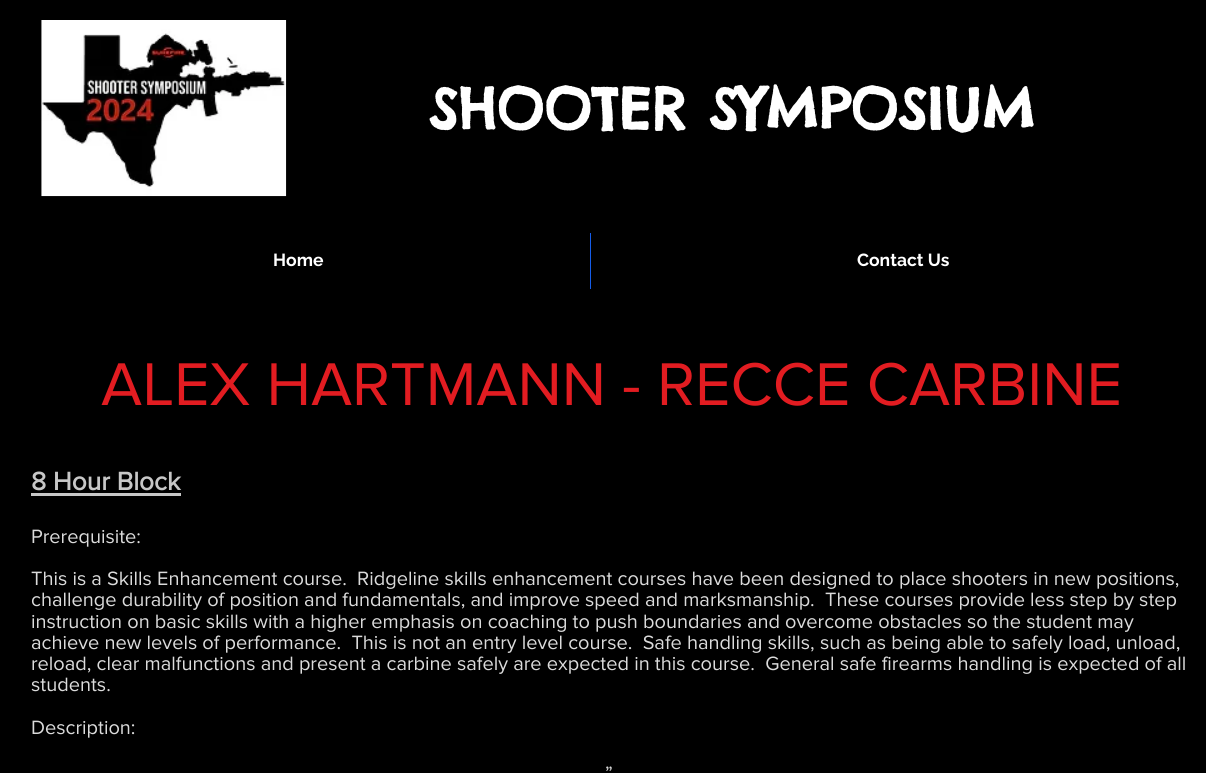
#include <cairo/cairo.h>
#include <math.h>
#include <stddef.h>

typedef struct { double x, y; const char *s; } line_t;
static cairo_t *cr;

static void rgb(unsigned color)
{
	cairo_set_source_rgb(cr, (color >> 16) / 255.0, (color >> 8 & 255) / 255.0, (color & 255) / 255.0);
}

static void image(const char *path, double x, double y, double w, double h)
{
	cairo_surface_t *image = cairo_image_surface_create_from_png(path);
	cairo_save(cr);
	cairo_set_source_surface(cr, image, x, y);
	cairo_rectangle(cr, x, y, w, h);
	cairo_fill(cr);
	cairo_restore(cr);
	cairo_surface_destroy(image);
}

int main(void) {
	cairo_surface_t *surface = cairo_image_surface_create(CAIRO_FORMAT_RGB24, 1206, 773);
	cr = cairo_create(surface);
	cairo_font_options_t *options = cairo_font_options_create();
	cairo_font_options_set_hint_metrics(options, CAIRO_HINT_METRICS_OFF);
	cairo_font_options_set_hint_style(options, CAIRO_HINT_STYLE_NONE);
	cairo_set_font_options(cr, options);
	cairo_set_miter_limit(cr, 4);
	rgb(0x000000);
	cairo_paint(cr);
	image("img/1.png", 41, 20, 246, 177);
	rgb(0x155de9);
	cairo_rectangle(cr, 590, 233, 1, 56);
	cairo_fill(cr);
	rgb(0xc7c7c7);
	cairo_rectangle(cr, 31, 493, 150, 3);
	cairo_fill(cr);
	cairo_select_font_face(cr, "Chelsea Market", CAIRO_FONT_SLANT_NORMAL, CAIRO_FONT_WEIGHT_BOLD);
	cairo_set_font_size(cr, 56.25);
	rgb(0xffffff);
	cairo_move_to(cr, 429, 129);
	cairo_show_text(cr, "SHOOTER SYMPOSIUM");
	cairo_select_font_face(cr, "Raleway", CAIRO_FONT_SLANT_NORMAL, CAIRO_FONT_WEIGHT_BOLD);
	cairo_set_font_size(cr, 17.5);
	cairo_move_to(cr, 273, 266);
	cairo_show_text(cr, "Home");
	cairo_move_to(cr, 857, 266);
	cairo_show_text(cr, "Contact Us");
	cairo_select_font_face(cr, "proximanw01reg", CAIRO_FONT_SLANT_NORMAL, CAIRO_FONT_WEIGHT_NORMAL);
	cairo_set_font_size(cr, 62.5);
	rgb(0xe21c21);
	cairo_move_to(cr, 101, 405);
	cairo_show_text(cr, "ALEX HARTMANN - RECCE CARBINE");
	cairo_select_font_face(cr, "proximanw01reg", CAIRO_FONT_SLANT_NORMAL, CAIRO_FONT_WEIGHT_BOLD);
	cairo_set_font_size(cr, 26.25);
	rgb(0xc7c7c7);
	cairo_move_to(cr, 31, 490);
	cairo_show_text(cr, "8 Hour Block");
	cairo_select_font_face(cr, "proximanw01reg", CAIRO_FONT_SLANT_NORMAL, CAIRO_FONT_WEIGHT_NORMAL);
	cairo_set_font_size(cr, 20);
	rgb(0xdbdbdb);
	{
		static const line_t items[] = {
			{31, 543, "Prerequisite:"},
			{31, 585, "This is a Skills Enhancement course.  Ridgeline skills enhancement courses have been designed to place shooters in new positions,"},
			{31, 606, "challenge durability of position and fundamentals, and improve speed and marksmanship.  These courses provide less step by step"},
			{31, 628, "instruction on basic skills with a higher emphasis on coaching to push boundaries and overcome obstacles so the student may"},
			{31, 649, "achieve new levels of performance.  This is not an entry level course.  Safe handling skills, such as being able to safely load, unload,"},
			{31, 670, "reload, clear malfunctions and present a carbine safely are expected in this course.  General safe firearms handling is expected of all"},
			{31, 691, "students."},
			{31, 734, "Description:"},
			{605, 780, "”"},
		};
		for (size_t i = 0; i < sizeof items / sizeof *items; i++) {
			cairo_move_to(cr, items[i].x, items[i].y);
			cairo_show_text(cr, items[i].s);
		}
	}
	cairo_surface_write_to_png(surface, "page.png");
	cairo_font_options_destroy(options);
	cairo_destroy(cr);
	cairo_surface_destroy(surface);
	return 0;
}
